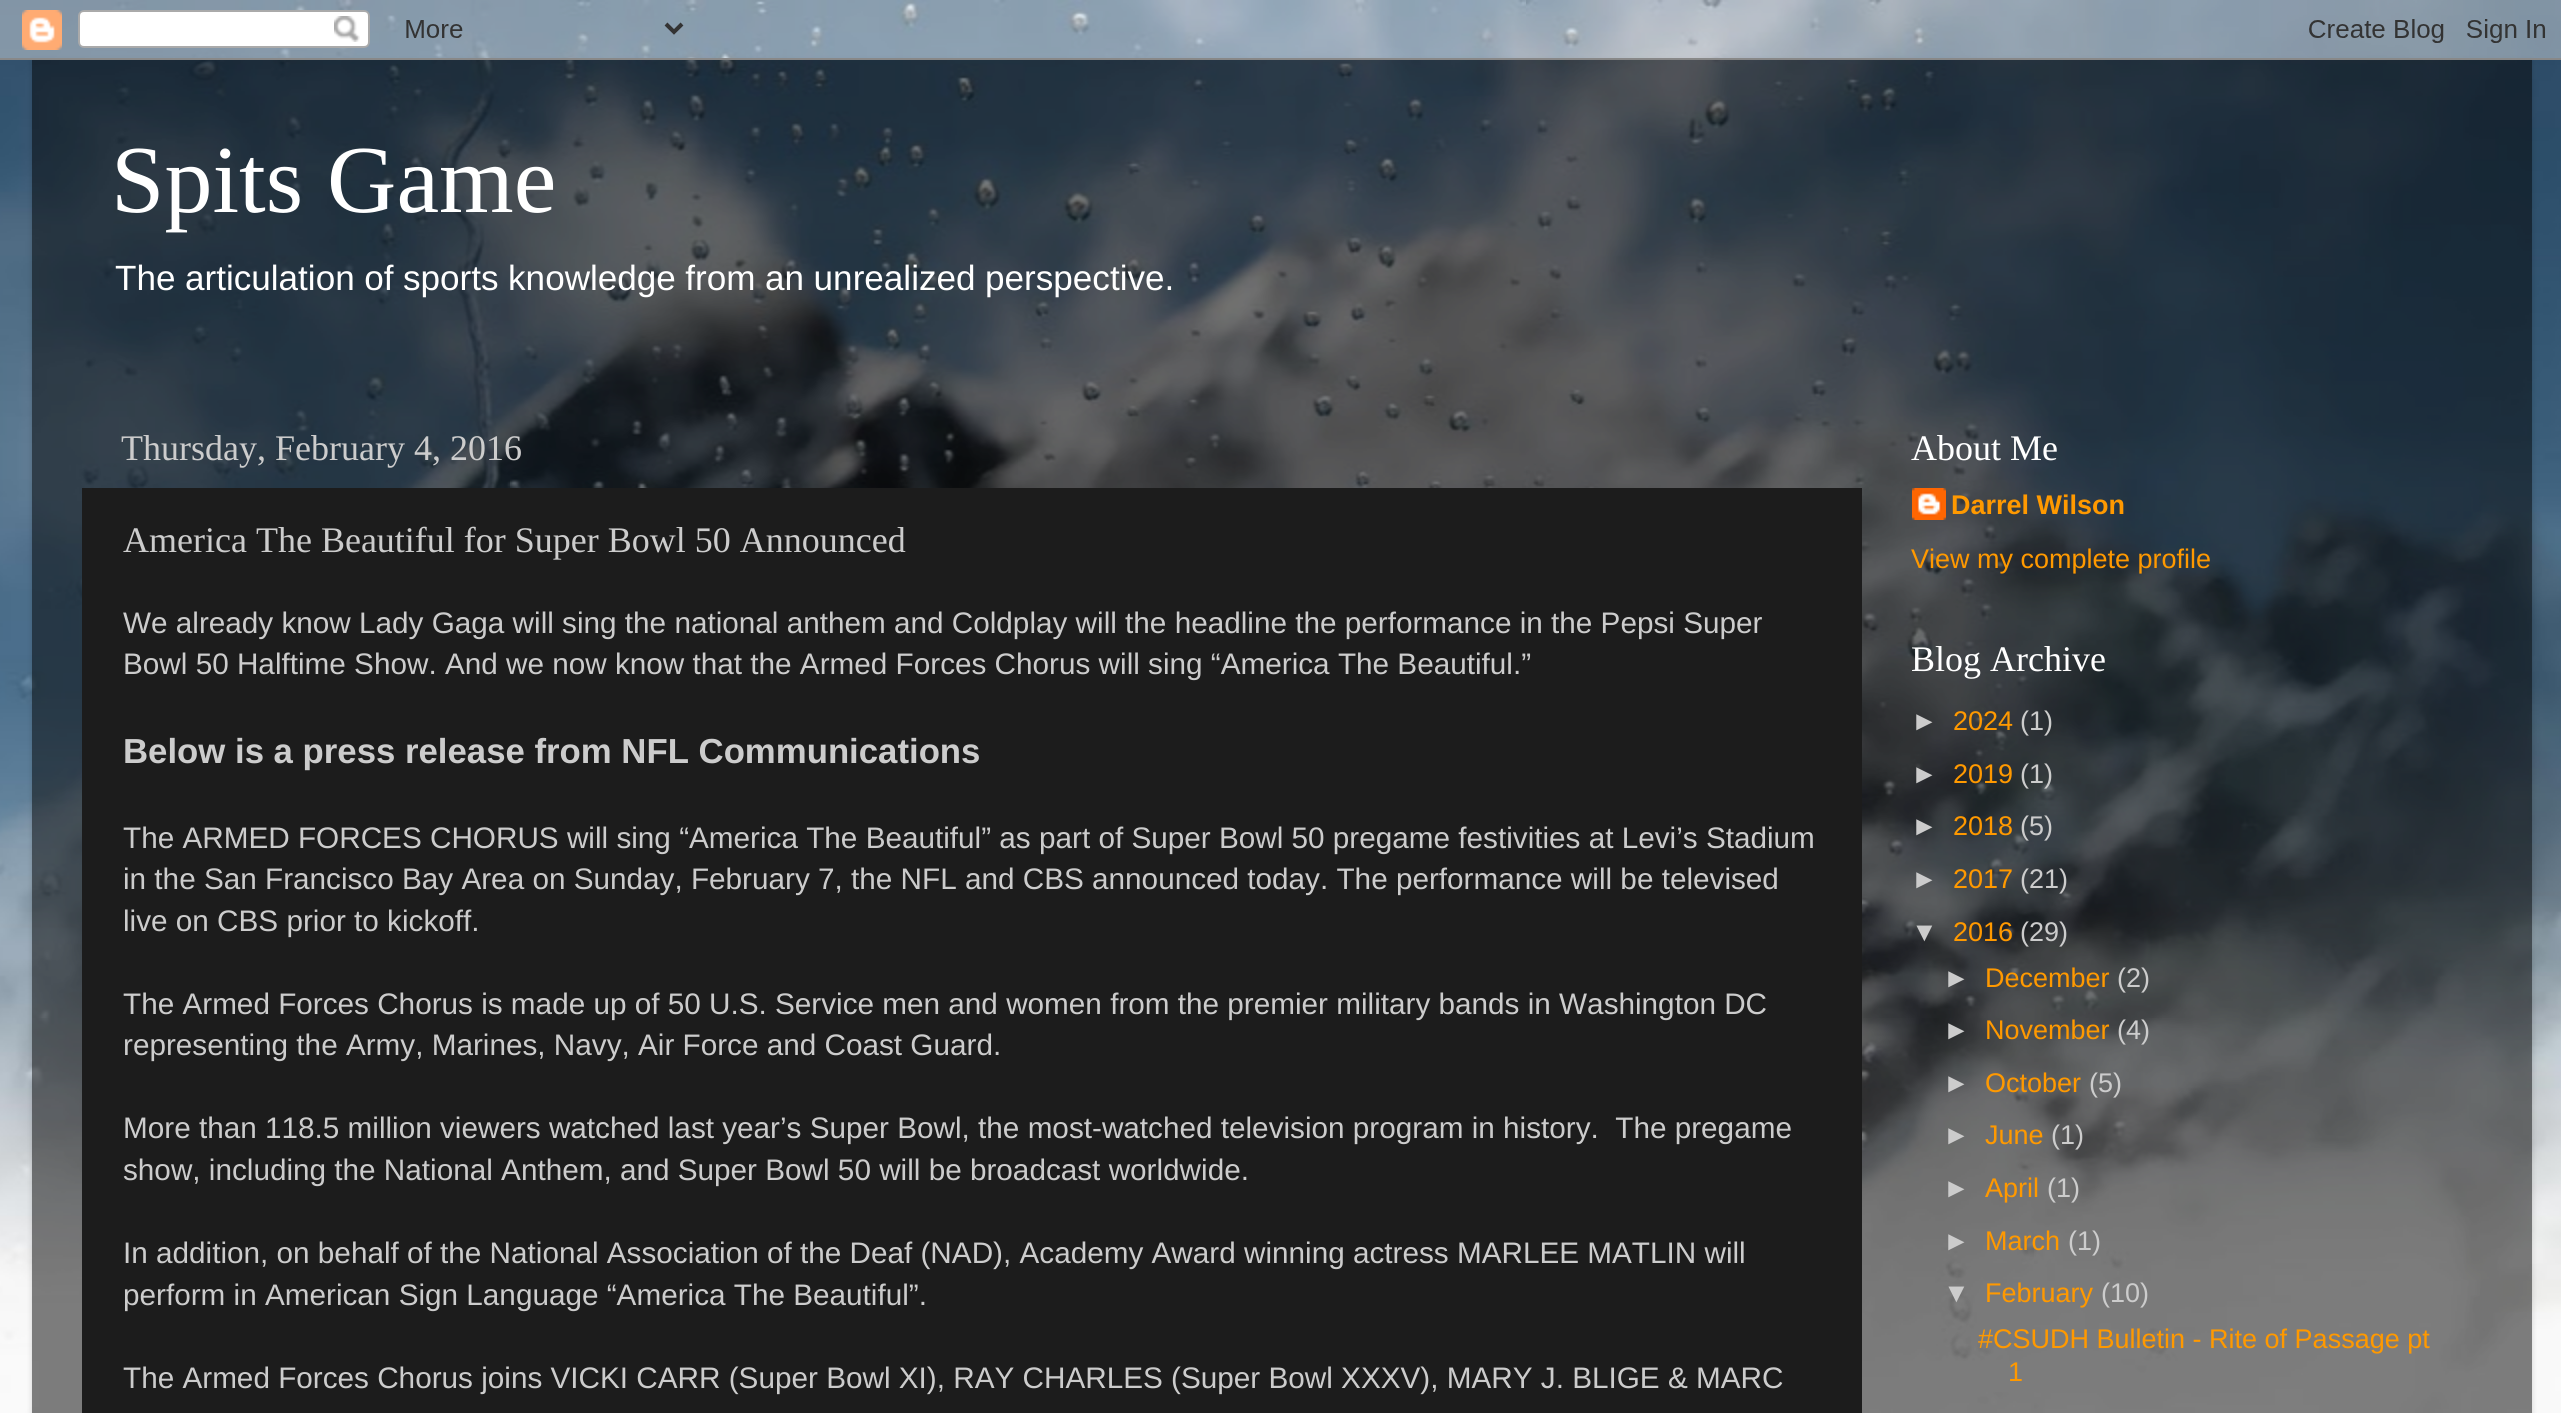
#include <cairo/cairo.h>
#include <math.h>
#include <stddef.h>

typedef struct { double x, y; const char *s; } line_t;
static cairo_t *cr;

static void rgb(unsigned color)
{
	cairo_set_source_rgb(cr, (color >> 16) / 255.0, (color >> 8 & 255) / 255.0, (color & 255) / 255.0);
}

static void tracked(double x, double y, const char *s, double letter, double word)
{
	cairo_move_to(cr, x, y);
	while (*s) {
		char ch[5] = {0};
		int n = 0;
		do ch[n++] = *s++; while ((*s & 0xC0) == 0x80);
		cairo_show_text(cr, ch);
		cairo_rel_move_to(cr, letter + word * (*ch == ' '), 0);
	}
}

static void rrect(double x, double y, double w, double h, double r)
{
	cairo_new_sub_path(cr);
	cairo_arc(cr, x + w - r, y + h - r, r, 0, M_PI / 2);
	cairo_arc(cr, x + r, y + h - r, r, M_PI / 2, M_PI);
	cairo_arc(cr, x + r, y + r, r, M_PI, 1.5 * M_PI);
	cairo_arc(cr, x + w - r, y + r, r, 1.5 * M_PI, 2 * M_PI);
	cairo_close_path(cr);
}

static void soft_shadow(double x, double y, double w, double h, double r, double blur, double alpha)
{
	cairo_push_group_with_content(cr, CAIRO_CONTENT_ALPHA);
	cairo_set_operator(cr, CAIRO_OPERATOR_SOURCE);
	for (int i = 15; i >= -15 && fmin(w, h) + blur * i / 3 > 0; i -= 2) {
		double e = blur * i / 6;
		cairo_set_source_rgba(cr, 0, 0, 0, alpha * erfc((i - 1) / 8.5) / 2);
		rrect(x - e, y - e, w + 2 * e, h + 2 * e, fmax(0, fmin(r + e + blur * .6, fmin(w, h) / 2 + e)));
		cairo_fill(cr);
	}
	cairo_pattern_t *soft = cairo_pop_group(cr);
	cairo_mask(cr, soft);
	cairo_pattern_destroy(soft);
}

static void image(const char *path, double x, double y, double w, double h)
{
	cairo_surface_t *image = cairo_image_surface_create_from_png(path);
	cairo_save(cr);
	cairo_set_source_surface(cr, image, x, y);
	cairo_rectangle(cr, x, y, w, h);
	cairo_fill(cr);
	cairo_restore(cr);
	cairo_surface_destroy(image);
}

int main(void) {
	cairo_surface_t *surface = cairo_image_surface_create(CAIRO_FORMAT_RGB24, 2561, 1413);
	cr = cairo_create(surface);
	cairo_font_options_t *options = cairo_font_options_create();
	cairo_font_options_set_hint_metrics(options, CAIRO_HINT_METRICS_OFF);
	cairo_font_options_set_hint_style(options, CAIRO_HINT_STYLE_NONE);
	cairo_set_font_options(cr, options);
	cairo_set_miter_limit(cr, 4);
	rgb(0xffffff);
	cairo_paint(cr);
	image("img/1.png", 0, 0, 2561, 1413);
	cairo_save(cr);
	cairo_set_fill_rule(cr, CAIRO_FILL_RULE_EVEN_ODD);
	cairo_new_path(cr);
	cairo_move_to(cr, 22, 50);
	cairo_line_to(cr, 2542, 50);
	cairo_line_to(cr, 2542, 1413);
	cairo_line_to(cr, 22, 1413);
	cairo_close_path(cr);
	cairo_move_to(cr, 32, 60);
	cairo_line_to(cr, 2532, 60);
	cairo_line_to(cr, 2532, 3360);
	cairo_line_to(cr, 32, 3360);
	cairo_close_path(cr);
	cairo_clip(cr);
	rgb(0x000000);
	soft_shadow(32, 60, 2500, 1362, 0, 3, 0.15);
	cairo_restore(cr);
	image("img/2.png", 0, 0, 2561, 60);
	rgb(0x1c1c1c);
	cairo_rectangle(cr, 82, 488, 1780, 925);
	cairo_fill(cr);
	image("img/3.png", 1912, 488, 34, 32);
	cairo_select_font_face(cr, "Liberation Serif", CAIRO_FONT_SLANT_NORMAL, CAIRO_FONT_WEIGHT_NORMAL);
	cairo_set_font_size(cr, 96);
	rgb(0xffffff);
	cairo_move_to(cr, 111, 212);
	cairo_show_text(cr, "Spits Game");
	cairo_select_font_face(cr, "Liberation Sans", CAIRO_FONT_SLANT_NORMAL, CAIRO_FONT_WEIGHT_NORMAL);
	cairo_set_font_size(cr, 35.1);
	tracked(115, 290, "The articulation of sports knowledge from an unrealized perspective.", 0, -0.25);
	cairo_select_font_face(cr, "Liberation Serif", CAIRO_FONT_SLANT_NORMAL, CAIRO_FONT_WEIGHT_NORMAL);
	cairo_set_font_size(cr, 36);
	rgb(0xcccccc);
	cairo_move_to(cr, 121, 460);
	cairo_show_text(cr, "Thursday, February 4, 2016");
	cairo_move_to(cr, 123, 552);
	cairo_show_text(cr, "America The Beautiful for Super Bowl 50 Announced");
	cairo_select_font_face(cr, "Liberation Sans", CAIRO_FONT_SLANT_NORMAL, CAIRO_FONT_WEIGHT_NORMAL);
	cairo_set_font_size(cr, 29.7);
	cairo_move_to(cr, 123, 633);
	cairo_show_text(cr, "We already know Lady Gaga will sing the national anthem and Coldplay will the headline the performance in the Pepsi Super");
	cairo_move_to(cr, 123, 674);
	cairo_show_text(cr, "Bowl 50 Halftime Show. And we now know that the Armed Forces Chorus will sing “America The Beautiful.”");
	cairo_select_font_face(cr, "Liberation Sans", CAIRO_FONT_SLANT_NORMAL, CAIRO_FONT_WEIGHT_BOLD);
	cairo_set_font_size(cr, 34.75);
	cairo_move_to(cr, 123, 763);
	cairo_show_text(cr, "Below is a press release from NFL Communications");
	cairo_select_font_face(cr, "Liberation Sans", CAIRO_FONT_SLANT_NORMAL, CAIRO_FONT_WEIGHT_NORMAL);
	cairo_set_font_size(cr, 29.7);
	{
		static const line_t items[] = {
			{123, 848, "The ARMED FORCES CHORUS will sing “America The Beautiful” as part of Super Bowl 50 pregame festivities at Levi’s Stadium"},
			{123, 889, "in the San Francisco Bay Area on Sunday, February 7, the NFL and CBS announced today. The performance will be televised"},
			{123, 931, "live on CBS prior to kickoff."},
			{123, 1014, "The Armed Forces Chorus is made up of 50 U.S. Service men and women from the premier military bands in Washington DC"},
			{123, 1055, "representing the Army, Marines, Navy, Air Force and Coast Guard."},
			{123, 1138, "More than 118.5 million viewers watched last year’s Super Bowl, the most-watched television program in history.  The pregame"},
			{123, 1180, "show, including the National Anthem, and Super Bowl 50 will be broadcast worldwide."},
			{123, 1263, "In addition, on behalf of the National Association of the Deaf (NAD), Academy Award winning actress MARLEE MATLIN will"},
			{123, 1305, "perform in American Sign Language “America The Beautiful”."},
			{123, 1388, "The Armed Forces Chorus joins VICKI CARR (Super Bowl XI), RAY CHARLES (Super Bowl XXXV), MARY J. BLIGE & MARC"},
		};
		for (size_t i = 0; i < sizeof items / sizeof *items; i++) {
			cairo_move_to(cr, items[i].x, items[i].y);
			cairo_show_text(cr, items[i].s);
		}
	}
	cairo_select_font_face(cr, "Liberation Serif", CAIRO_FONT_SLANT_NORMAL, CAIRO_FONT_WEIGHT_NORMAL);
	cairo_set_font_size(cr, 36);
	rgb(0xffffff);
	cairo_move_to(cr, 1911, 460);
	cairo_show_text(cr, "About Me");
	cairo_select_font_face(cr, "Liberation Sans", CAIRO_FONT_SLANT_NORMAL, CAIRO_FONT_WEIGHT_BOLD);
	cairo_set_font_size(cr, 27);
	rgb(0xff9900);
	cairo_move_to(cr, 1951, 514);
	cairo_show_text(cr, "Darrel Wilson");
	cairo_select_font_face(cr, "Liberation Sans", CAIRO_FONT_SLANT_NORMAL, CAIRO_FONT_WEIGHT_NORMAL);
	cairo_move_to(cr, 1911, 568);
	cairo_show_text(cr, "View my complete profile");
	cairo_select_font_face(cr, "Liberation Serif", CAIRO_FONT_SLANT_NORMAL, CAIRO_FONT_WEIGHT_NORMAL);
	cairo_set_font_size(cr, 36);
	rgb(0xffffff);
	cairo_move_to(cr, 1911, 671);
	cairo_show_text(cr, "Blog Archive");
	cairo_select_font_face(cr, "Liberation Sans", CAIRO_FONT_SLANT_NORMAL, CAIRO_FONT_WEIGHT_NORMAL);
	cairo_set_font_size(cr, 27);
	rgb(0xcccccc);
	cairo_move_to(cr, 1911, 730);
	cairo_show_text(cr, "►");
	rgb(0xff9900);
	cairo_move_to(cr, 1953, 730);
	cairo_show_text(cr, "2024");
	rgb(0xcccccc);
	cairo_move_to(cr, 2020, 730);
	cairo_show_text(cr, "(1)");
	cairo_move_to(cr, 1911, 783);
	cairo_show_text(cr, "►");
	rgb(0xff9900);
	cairo_move_to(cr, 1953, 783);
	cairo_show_text(cr, "2019");
	rgb(0xcccccc);
	cairo_move_to(cr, 2020, 783);
	cairo_show_text(cr, "(1)");
	cairo_move_to(cr, 1911, 835);
	cairo_show_text(cr, "►");
	rgb(0xff9900);
	cairo_move_to(cr, 1953, 835);
	cairo_show_text(cr, "2018");
	rgb(0xcccccc);
	cairo_move_to(cr, 2020, 835);
	cairo_show_text(cr, "(5)");
	cairo_move_to(cr, 1911, 888);
	cairo_show_text(cr, "►");
	rgb(0xff9900);
	cairo_move_to(cr, 1953, 888);
	cairo_show_text(cr, "2017");
	rgb(0xcccccc);
	cairo_move_to(cr, 2020, 888);
	cairo_show_text(cr, "(21)");
	cairo_move_to(cr, 1911, 941);
	cairo_show_text(cr, "▼");
	rgb(0xff9900);
	cairo_move_to(cr, 1953, 941);
	cairo_show_text(cr, "2016");
	rgb(0xcccccc);
	cairo_move_to(cr, 2020, 941);
	cairo_show_text(cr, "(29)");
	cairo_move_to(cr, 1943, 987);
	cairo_show_text(cr, "►");
	rgb(0xff9900);
	cairo_move_to(cr, 1985, 987);
	cairo_show_text(cr, "December");
	rgb(0xcccccc);
	cairo_move_to(cr, 2117, 987);
	cairo_show_text(cr, "(2)");
	cairo_move_to(cr, 1943, 1039);
	cairo_show_text(cr, "►");
	rgb(0xff9900);
	cairo_move_to(cr, 1985, 1039);
	cairo_show_text(cr, "November");
	rgb(0xcccccc);
	cairo_move_to(cr, 2117, 1039);
	cairo_show_text(cr, "(4)");
	cairo_move_to(cr, 1943, 1092);
	cairo_show_text(cr, "►");
	rgb(0xff9900);
	cairo_move_to(cr, 1985, 1092);
	cairo_show_text(cr, "October");
	rgb(0xcccccc);
	cairo_move_to(cr, 2089, 1092);
	cairo_show_text(cr, "(5)");
	cairo_move_to(cr, 1943, 1144);
	cairo_show_text(cr, "►");
	rgb(0xff9900);
	cairo_move_to(cr, 1985, 1144);
	cairo_show_text(cr, "June");
	rgb(0xcccccc);
	cairo_move_to(cr, 2051, 1144);
	cairo_show_text(cr, "(1)");
	cairo_move_to(cr, 1943, 1197);
	cairo_show_text(cr, "►");
	rgb(0xff9900);
	cairo_move_to(cr, 1985, 1197);
	cairo_show_text(cr, "April");
	rgb(0xcccccc);
	cairo_move_to(cr, 2047, 1197);
	cairo_show_text(cr, "(1)");
	cairo_move_to(cr, 1943, 1250);
	cairo_show_text(cr, "►");
	rgb(0xff9900);
	cairo_move_to(cr, 1985, 1250);
	cairo_show_text(cr, "March");
	rgb(0xcccccc);
	cairo_move_to(cr, 2068, 1250);
	cairo_show_text(cr, "(1)");
	cairo_move_to(cr, 1943, 1302);
	cairo_show_text(cr, "▼");
	rgb(0xff9900);
	cairo_move_to(cr, 1985, 1302);
	cairo_show_text(cr, "February");
	rgb(0xcccccc);
	cairo_move_to(cr, 2101, 1302);
	cairo_show_text(cr, "(10)");
	rgb(0xff9900);
	cairo_move_to(cr, 1978, 1348);
	cairo_show_text(cr, "#CSUDH Bulletin - Rite of Passage pt");
	cairo_move_to(cr, 2008, 1381);
	cairo_show_text(cr, "1");
	cairo_surface_write_to_png(surface, "page.png");
	cairo_font_options_destroy(options);
	cairo_destroy(cr);
	cairo_surface_destroy(surface);
	return 0;
}
